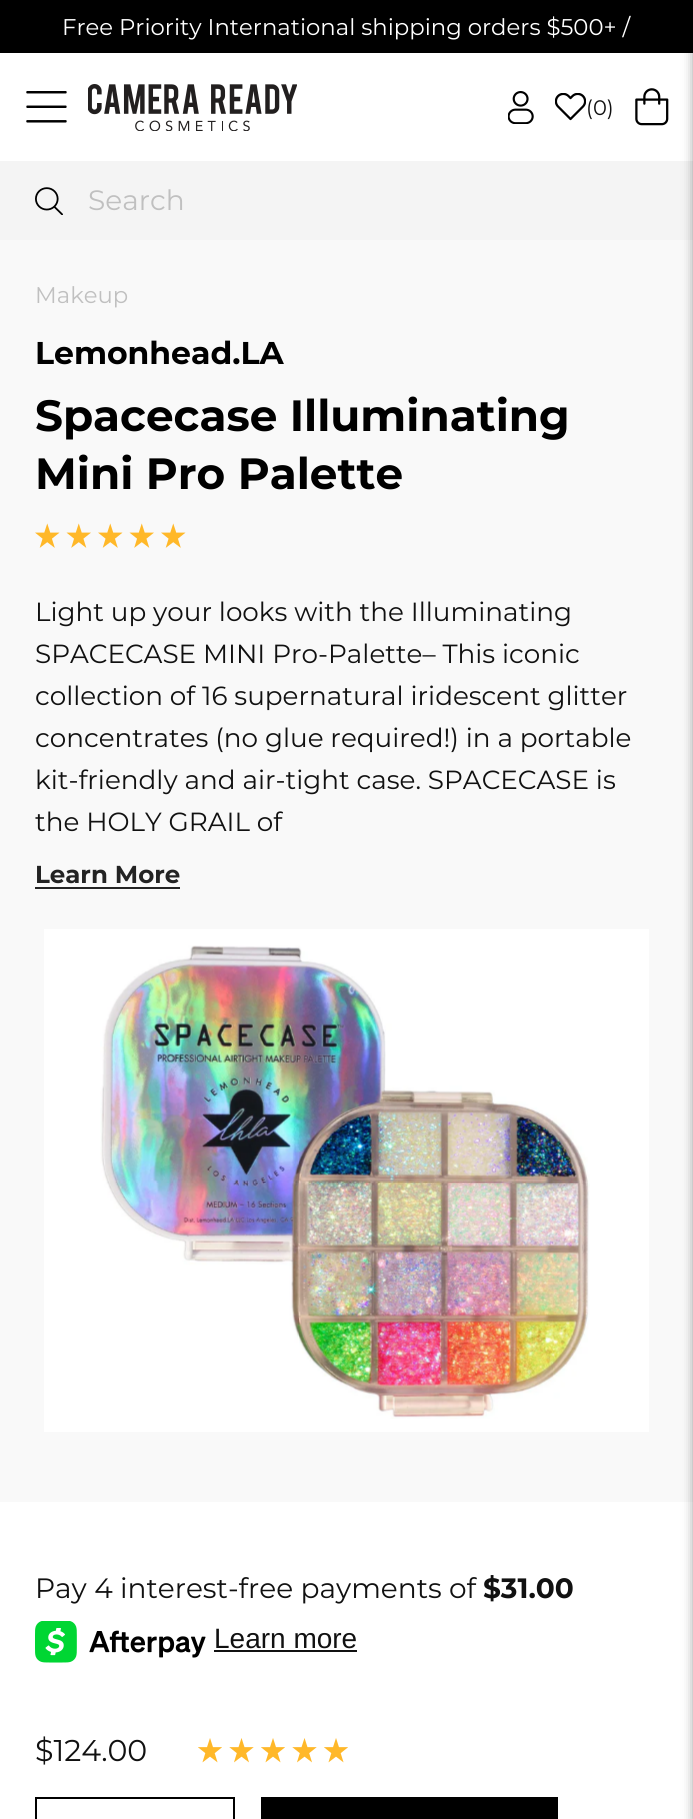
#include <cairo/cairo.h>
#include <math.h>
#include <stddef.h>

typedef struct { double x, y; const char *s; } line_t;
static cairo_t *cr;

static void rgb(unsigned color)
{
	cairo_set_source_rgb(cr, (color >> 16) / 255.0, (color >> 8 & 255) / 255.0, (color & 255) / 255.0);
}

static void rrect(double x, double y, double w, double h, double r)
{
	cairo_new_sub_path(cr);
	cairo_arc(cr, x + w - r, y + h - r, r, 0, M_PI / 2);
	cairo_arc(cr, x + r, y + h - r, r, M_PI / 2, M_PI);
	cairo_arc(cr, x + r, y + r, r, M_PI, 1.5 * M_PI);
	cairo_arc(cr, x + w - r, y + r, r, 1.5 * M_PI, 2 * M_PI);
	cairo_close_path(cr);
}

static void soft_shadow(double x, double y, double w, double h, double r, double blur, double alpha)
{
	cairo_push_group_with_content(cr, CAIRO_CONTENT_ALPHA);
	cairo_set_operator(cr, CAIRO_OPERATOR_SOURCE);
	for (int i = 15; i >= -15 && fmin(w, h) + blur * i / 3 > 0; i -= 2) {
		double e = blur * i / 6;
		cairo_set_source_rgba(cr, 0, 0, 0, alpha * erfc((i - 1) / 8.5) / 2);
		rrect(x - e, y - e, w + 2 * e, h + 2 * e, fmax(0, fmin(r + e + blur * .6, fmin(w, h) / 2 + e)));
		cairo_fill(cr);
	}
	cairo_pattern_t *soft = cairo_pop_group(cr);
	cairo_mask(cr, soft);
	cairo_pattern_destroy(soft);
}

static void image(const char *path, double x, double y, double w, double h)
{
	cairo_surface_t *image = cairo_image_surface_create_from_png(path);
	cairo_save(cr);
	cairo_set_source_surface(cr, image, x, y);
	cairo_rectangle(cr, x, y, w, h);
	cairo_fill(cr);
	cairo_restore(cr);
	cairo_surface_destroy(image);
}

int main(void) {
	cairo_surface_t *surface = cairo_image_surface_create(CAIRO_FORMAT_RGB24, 693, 1819);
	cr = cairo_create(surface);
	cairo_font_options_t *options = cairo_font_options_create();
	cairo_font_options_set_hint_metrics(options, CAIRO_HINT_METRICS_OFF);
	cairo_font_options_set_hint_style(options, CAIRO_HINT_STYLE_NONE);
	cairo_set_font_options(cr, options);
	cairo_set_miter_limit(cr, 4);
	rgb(0xffffff);
	cairo_paint(cr);
	rgb(0x000000);
	cairo_rectangle(cr, 0, 0, 693, 53);
	cairo_fill(cr);
	image("img/1.png", 26, 91, 41, 32);
	image("img/2.png", 88, 84, 209, 47);
	image("img/3.png", 508, 91, 26, 33);
	image("img/4.png", 555, 93, 31, 28);
	image("img/5.png", 635, 88, 34, 38);
	rgb(0xf4f4f4);
	cairo_rectangle(cr, 0, 161, 693, 79);
	cairo_fill(cr);
	image("img/6.png", 35, 187, 28, 28);
	rgb(0xf9f9f9);
	cairo_rectangle(cr, 0, 240, 693, 1262);
	cairo_fill(cr);
	image("img/7.png", 35, 523, 25, 25);
	image("img/8.png", 66, 523, 25, 25);
	image("img/7.png", 98, 523, 25, 25);
	image("img/8.png", 129, 523, 25, 25);
	image("img/7.png", 161, 523, 25, 25);
	rgb(0x232323);
	cairo_rectangle(cr, 35, 887, 145, 2);
	cairo_fill(cr);
	rgb(0xffffff);
	cairo_rectangle(cr, 44, 929, 605, 503);
	cairo_fill(cr);
	image("img/9.png", 100, 945, 490, 474);
	image("img/10.png", 35, 1621, 171, 42);
	rgb(0x111111);
	cairo_rectangle(cr, 214, 1650, 143, 2);
	cairo_fill(cr);
	image("img/11.png", 198, 1738, 24, 25);
	image("img/12.png", 229, 1738, 25, 25);
	image("img/11.png", 261, 1738, 24, 25);
	image("img/12.png", 292, 1738, 25, 25);
	image("img/11.png", 324, 1738, 24, 25);
	cairo_rectangle(cr, 36, 1798, 198, 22);
	rgb(0x000000);
	cairo_stroke(cr);
	cairo_rectangle(cr, 261, 1797, 297, 22);
	cairo_fill(cr);
	rgb(0x000000);
	soft_shadow(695, 0, 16, 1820, 0, 6, 0.5);
	cairo_select_font_face(cr, "Montserrat", CAIRO_FONT_SLANT_NORMAL, CAIRO_FONT_WEIGHT_NORMAL);
	cairo_set_font_size(cr, 22.75);
	rgb(0xffffff);
	cairo_move_to(cr, 62, 35);
	cairo_show_text(cr, "Free Priority International shipping orders $500+ /");
	cairo_set_font_size(cr, 21);
	rgb(0x111111);
	cairo_move_to(cr, 586, 115);
	cairo_show_text(cr, "(0)");
	cairo_set_font_size(cr, 28);
	rgb(0xc0c0c0);
	cairo_move_to(cr, 88, 210);
	cairo_show_text(cr, "Search");
	cairo_set_font_size(cr, 22.75);
	cairo_move_to(cr, 35, 303);
	cairo_show_text(cr, "Makeup");
	cairo_select_font_face(cr, "Montserrat", CAIRO_FONT_SLANT_NORMAL, CAIRO_FONT_WEIGHT_BOLD);
	cairo_set_font_size(cr, 31.5);
	rgb(0x000000);
	cairo_move_to(cr, 35, 364);
	cairo_show_text(cr, "Lemonhead.LA");
	cairo_set_font_size(cr, 43.75);
	cairo_move_to(cr, 35, 431);
	cairo_show_text(cr, "Spacecase Illuminating");
	cairo_move_to(cr, 35, 489);
	cairo_show_text(cr, "Mini Pro Palette");
	cairo_select_font_face(cr, "Montserrat", CAIRO_FONT_SLANT_NORMAL, CAIRO_FONT_WEIGHT_NORMAL);
	cairo_set_font_size(cr, 26.25);
	rgb(0x111111);
	{
		static const line_t items[] = {
			{35, 621, "Light up your looks with the Illuminating"},
			{35, 663, "SPACECASE MINI Pro-Palette– This iconic"},
			{35, 705, "collection of 16 supernatural iridescent glitter"},
			{35, 747, "concentrates (no glue required!) in a portable"},
			{35, 789, "kit-friendly and air-tight case. SPACECASE is"},
			{35, 831, "the HOLY GRAIL of"},
		};
		for (size_t i = 0; i < sizeof items / sizeof *items; i++) {
			cairo_move_to(cr, items[i].x, items[i].y);
			cairo_show_text(cr, items[i].s);
		}
	}
	cairo_select_font_face(cr, "Montserrat", CAIRO_FONT_SLANT_NORMAL, CAIRO_FONT_WEIGHT_BOLD);
	cairo_set_font_size(cr, 24.5);
	rgb(0x232323);
	cairo_move_to(cr, 35, 883);
	cairo_show_text(cr, "Learn More");
	cairo_select_font_face(cr, "Montserrat", CAIRO_FONT_SLANT_NORMAL, CAIRO_FONT_WEIGHT_NORMAL);
	cairo_set_font_size(cr, 28);
	rgb(0x111111);
	cairo_move_to(cr, 35, 1598);
	cairo_show_text(cr, "Pay 4 interest-free payments of");
	cairo_select_font_face(cr, "Montserrat", CAIRO_FONT_SLANT_NORMAL, CAIRO_FONT_WEIGHT_BOLD);
	cairo_move_to(cr, 483, 1598);
	cairo_show_text(cr, "$31.00");
	cairo_select_font_face(cr, "Liberation Sans", CAIRO_FONT_SLANT_NORMAL, CAIRO_FONT_WEIGHT_NORMAL);
	cairo_move_to(cr, 214, 1648);
	cairo_show_text(cr, "Learn more");
	cairo_select_font_face(cr, "Montserrat", CAIRO_FONT_SLANT_NORMAL, CAIRO_FONT_WEIGHT_NORMAL);
	cairo_set_font_size(cr, 30);
	cairo_move_to(cr, 35, 1761);
	cairo_show_text(cr, "$124.00");
	cairo_surface_write_to_png(surface, "page.png");
	cairo_font_options_destroy(options);
	cairo_destroy(cr);
	cairo_surface_destroy(surface);
	return 0;
}
